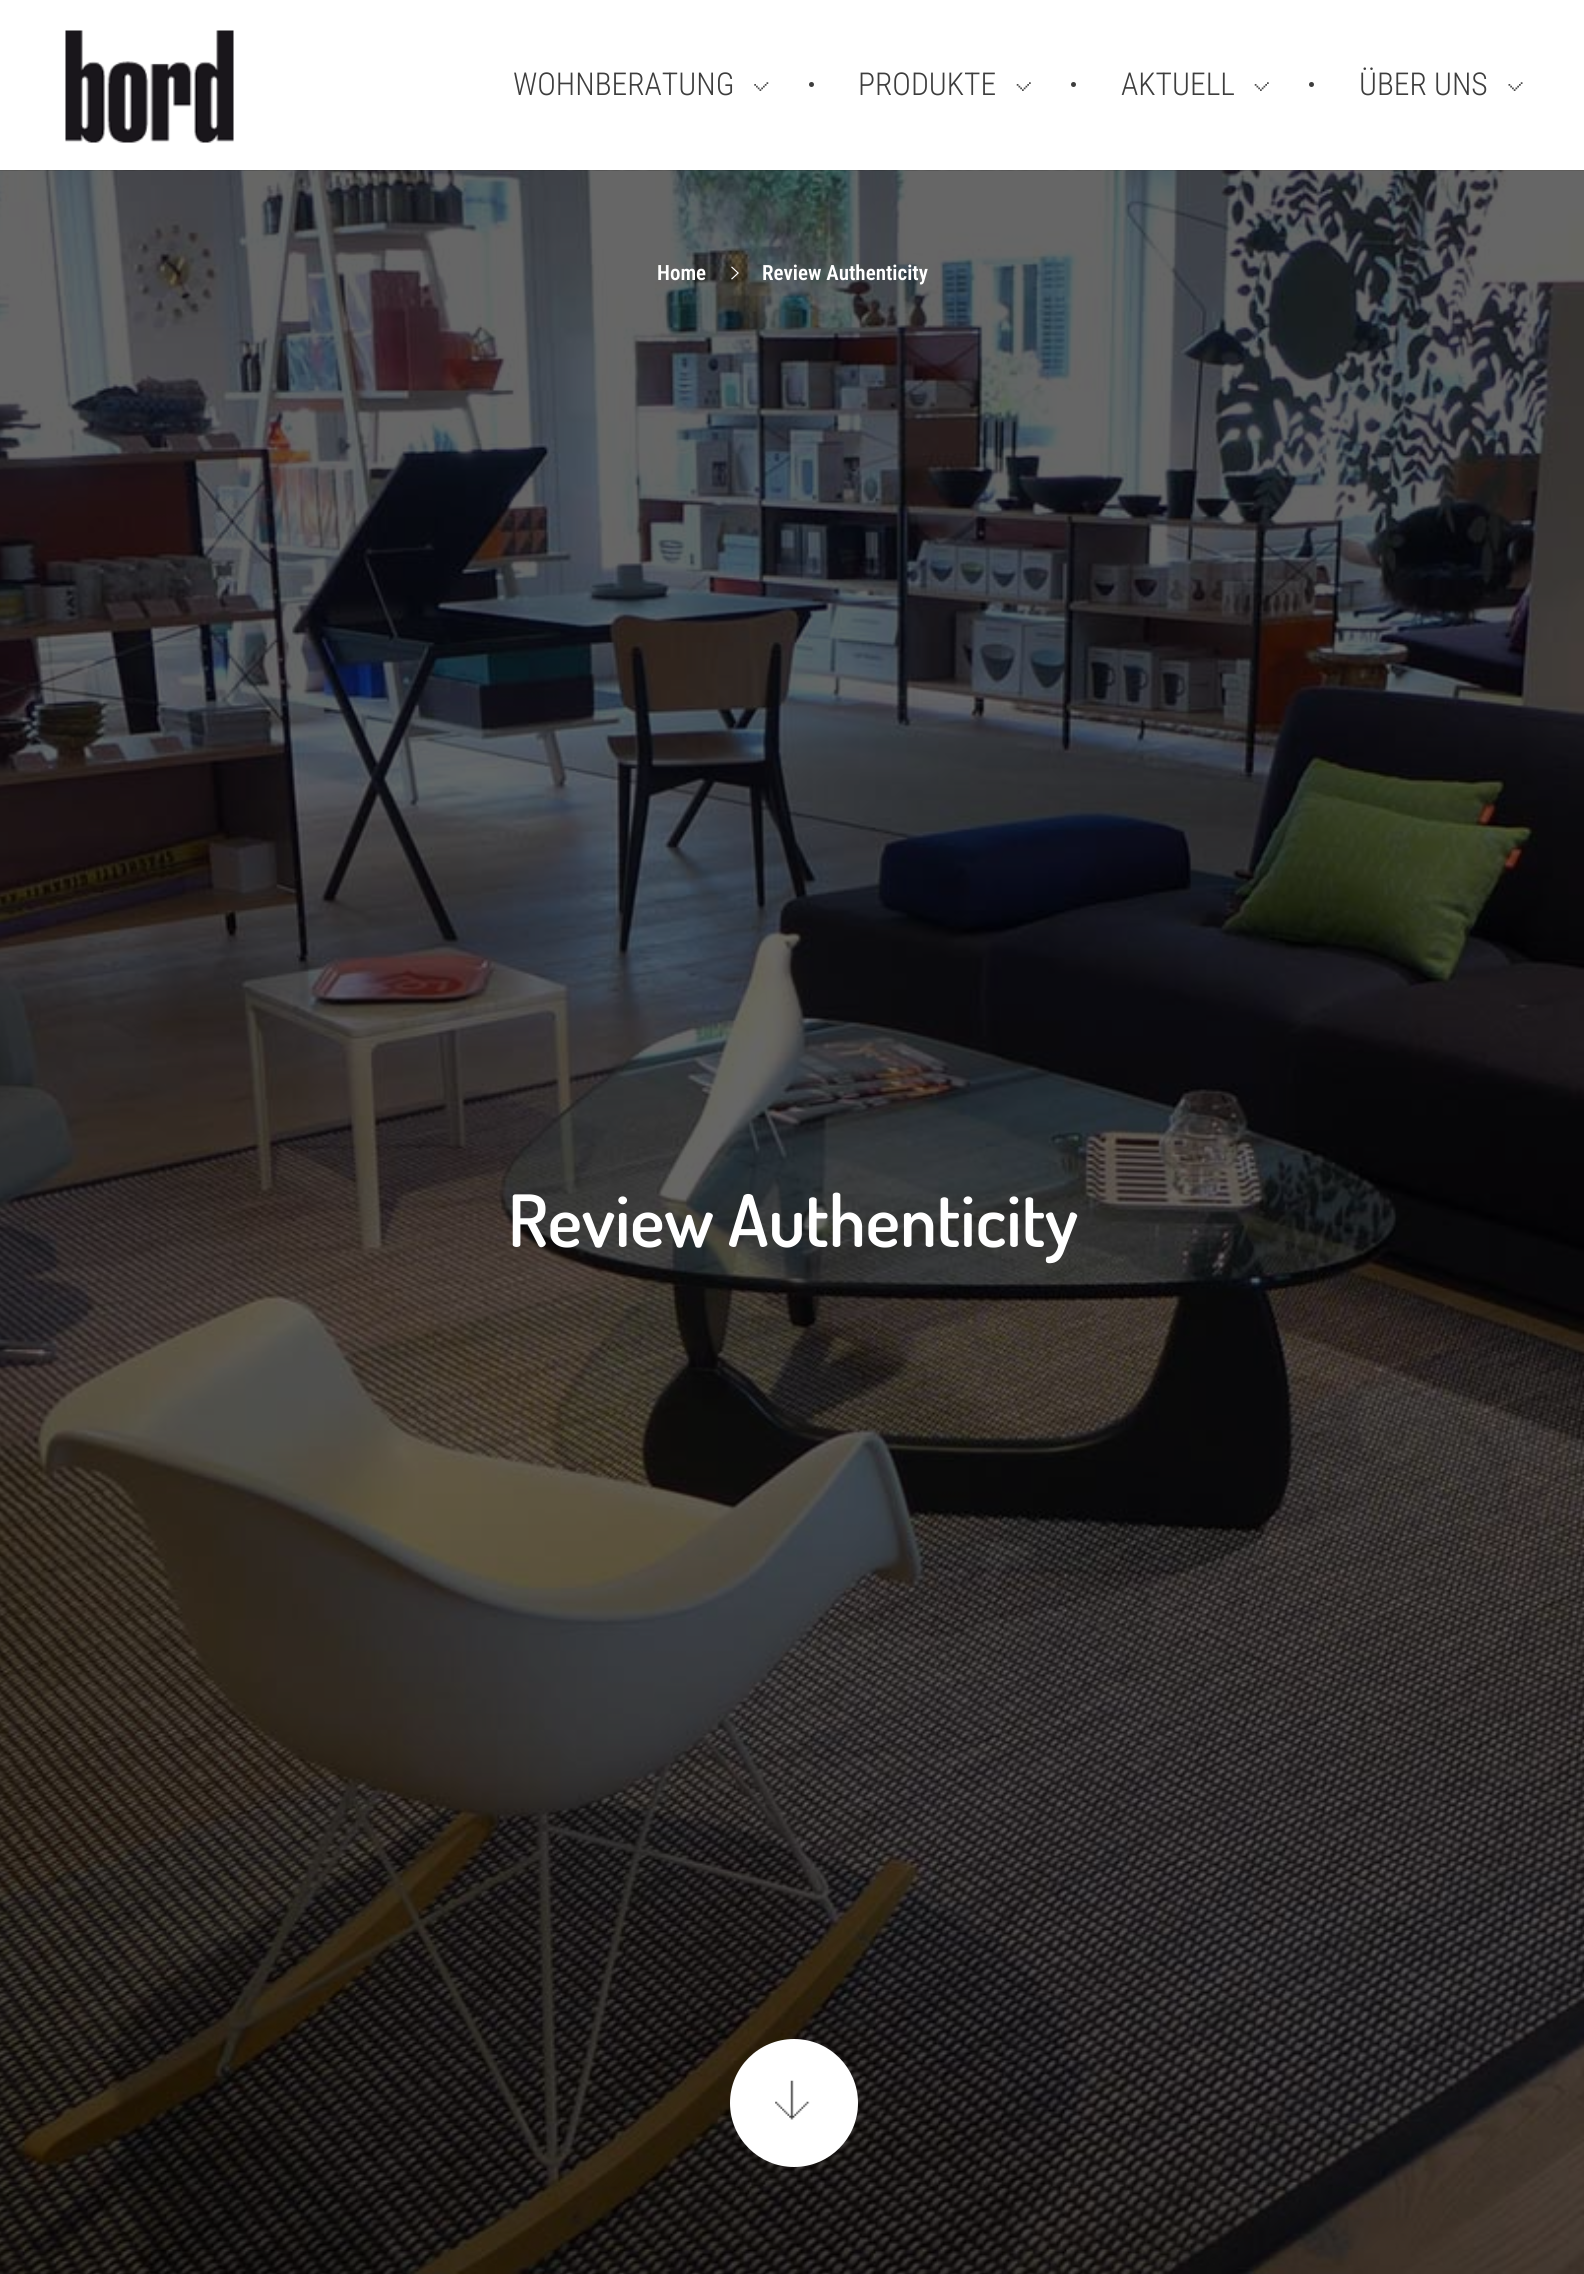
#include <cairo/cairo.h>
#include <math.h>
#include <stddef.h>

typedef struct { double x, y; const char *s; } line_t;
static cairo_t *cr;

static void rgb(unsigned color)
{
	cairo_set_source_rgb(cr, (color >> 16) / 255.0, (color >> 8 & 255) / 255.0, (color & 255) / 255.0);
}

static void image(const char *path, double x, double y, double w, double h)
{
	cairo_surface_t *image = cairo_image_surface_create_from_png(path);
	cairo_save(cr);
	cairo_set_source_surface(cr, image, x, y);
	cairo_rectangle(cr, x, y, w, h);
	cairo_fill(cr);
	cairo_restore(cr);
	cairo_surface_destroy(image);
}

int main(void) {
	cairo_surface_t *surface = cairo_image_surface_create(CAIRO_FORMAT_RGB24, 1584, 2274);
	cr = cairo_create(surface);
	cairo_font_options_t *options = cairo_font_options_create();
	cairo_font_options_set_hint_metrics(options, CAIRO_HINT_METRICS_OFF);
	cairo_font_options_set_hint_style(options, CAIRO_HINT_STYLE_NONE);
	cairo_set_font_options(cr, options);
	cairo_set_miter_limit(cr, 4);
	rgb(0xffffff);
	cairo_paint(cr);
	image("img/1.png", 65, 30, 169, 113);
	image("img/2.png", 754, 82, 15, 9);
	rgb(0x3d3d3d);
	cairo_arc(cr, 811.5, 84.5, 2.5, 0, 2 * M_PI);
	cairo_fill(cr);
	image("img/3.png", 1016, 82, 15, 9);
	cairo_arc(cr, 1073.5, 84.5, 2.5, 0, 2 * M_PI);
	cairo_fill(cr);
	image("img/3.png", 1254, 82, 15, 9);
	cairo_arc(cr, 1311.5, 84.5, 2.5, 0, 2 * M_PI);
	cairo_fill(cr);
	image("img/4.png", 1508, 82, 15, 9);
	image("img/5.png", 0, 170, 1584, 2104);
	image("img/6.png", 731, 266, 8, 14);
	rgb(0xffffff);
	cairo_arc(cr, 794, 2103, 64, 0, 2 * M_PI);
	cairo_fill(cr);
	image("img/7.png", 775, 2080, 35, 40);
	cairo_select_font_face(cr, "Roboto Condensed Light", CAIRO_FONT_SLANT_NORMAL, CAIRO_FONT_WEIGHT_NORMAL);
	cairo_set_font_size(cr, 31.5);
	rgb(0x3d3d3d);
	{
		static const line_t items[] = {
			{513, 95, "WOHNBERATUNG"},
			{858, 95, "PRODUKTE"},
			{1121, 95, "AKTUELL"},
			{1359, 95, "ÜBER UNS"},
		};
		for (size_t i = 0; i < sizeof items / sizeof *items; i++) {
			cairo_move_to(cr, items[i].x, items[i].y);
			cairo_show_text(cr, items[i].s);
		}
	}
	cairo_select_font_face(cr, "Roboto Condensed SemiBold", CAIRO_FONT_SLANT_NORMAL, CAIRO_FONT_WEIGHT_NORMAL);
	cairo_set_font_size(cr, 21);
	rgb(0xffffff);
	cairo_move_to(cr, 657, 280);
	cairo_show_text(cr, "Home");
	cairo_move_to(cr, 762, 280);
	cairo_show_text(cr, "Review Authenticity");
	cairo_select_font_face(cr, "Dosis SemiBold", CAIRO_FONT_SLANT_NORMAL, CAIRO_FONT_WEIGHT_NORMAL);
	cairo_set_font_size(cr, 72);
	cairo_move_to(cr, 508, 1247);
	cairo_show_text(cr, "Review Authenticity");
	cairo_surface_write_to_png(surface, "page.png");
	cairo_font_options_destroy(options);
	cairo_destroy(cr);
	cairo_surface_destroy(surface);
	return 0;
}
